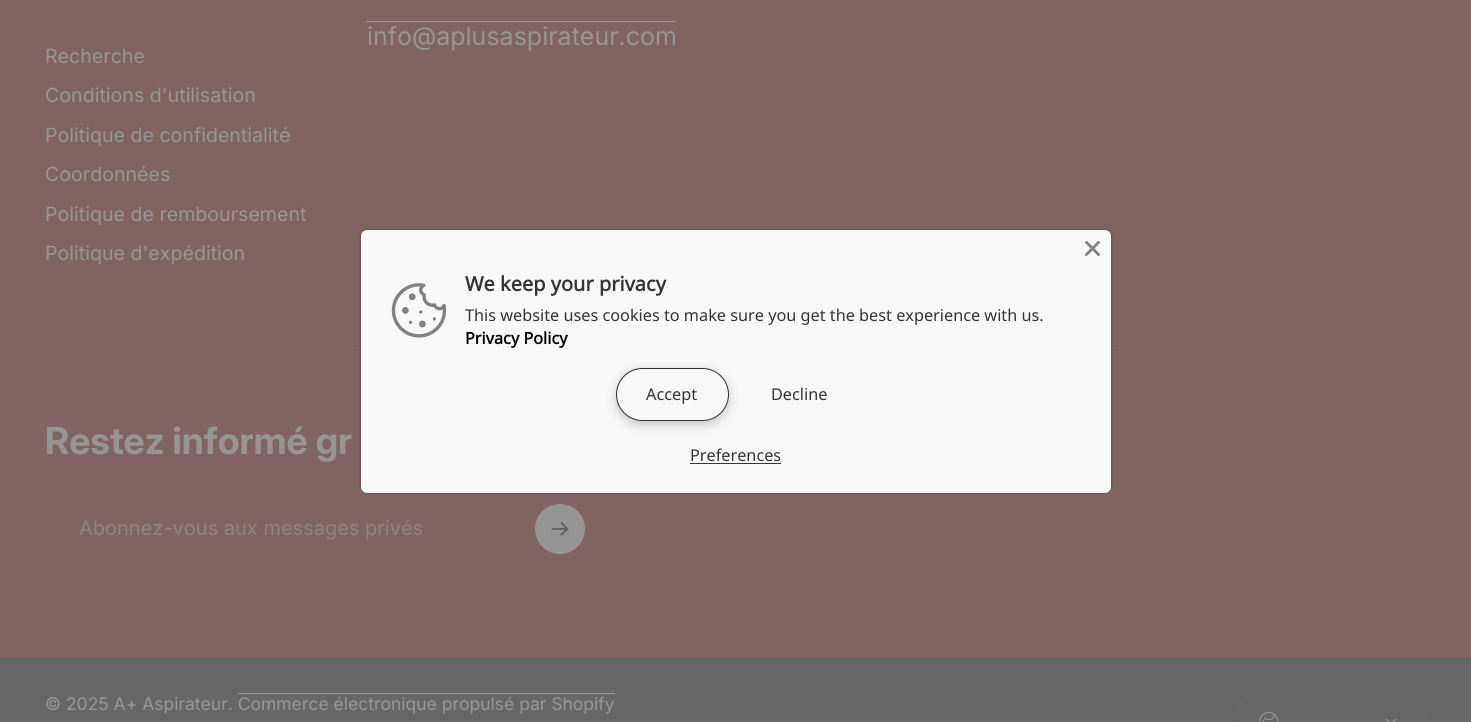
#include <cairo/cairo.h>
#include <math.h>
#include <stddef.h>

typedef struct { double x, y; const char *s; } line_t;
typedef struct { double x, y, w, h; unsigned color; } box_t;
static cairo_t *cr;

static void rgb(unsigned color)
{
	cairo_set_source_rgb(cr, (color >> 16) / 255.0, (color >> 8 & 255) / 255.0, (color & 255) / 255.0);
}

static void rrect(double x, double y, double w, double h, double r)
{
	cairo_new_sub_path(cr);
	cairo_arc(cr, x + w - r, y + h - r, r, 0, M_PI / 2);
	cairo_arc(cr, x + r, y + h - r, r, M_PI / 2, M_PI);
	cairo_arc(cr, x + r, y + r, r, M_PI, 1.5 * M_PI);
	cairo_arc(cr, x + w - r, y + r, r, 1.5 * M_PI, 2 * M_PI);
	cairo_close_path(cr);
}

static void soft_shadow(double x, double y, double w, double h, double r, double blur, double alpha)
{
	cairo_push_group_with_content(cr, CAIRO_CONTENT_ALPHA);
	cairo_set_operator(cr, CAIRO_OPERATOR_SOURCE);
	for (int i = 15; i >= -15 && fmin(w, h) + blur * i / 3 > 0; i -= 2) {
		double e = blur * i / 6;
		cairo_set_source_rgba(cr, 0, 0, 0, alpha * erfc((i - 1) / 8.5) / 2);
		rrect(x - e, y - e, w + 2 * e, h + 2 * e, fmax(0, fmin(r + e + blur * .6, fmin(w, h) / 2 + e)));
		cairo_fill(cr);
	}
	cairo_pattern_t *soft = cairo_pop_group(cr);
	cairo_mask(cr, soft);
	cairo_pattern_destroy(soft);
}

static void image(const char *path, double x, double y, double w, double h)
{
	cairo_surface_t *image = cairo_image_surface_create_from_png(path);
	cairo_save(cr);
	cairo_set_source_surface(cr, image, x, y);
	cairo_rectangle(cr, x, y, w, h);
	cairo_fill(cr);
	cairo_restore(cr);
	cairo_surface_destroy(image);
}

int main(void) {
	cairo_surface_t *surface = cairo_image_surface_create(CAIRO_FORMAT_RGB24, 1471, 722);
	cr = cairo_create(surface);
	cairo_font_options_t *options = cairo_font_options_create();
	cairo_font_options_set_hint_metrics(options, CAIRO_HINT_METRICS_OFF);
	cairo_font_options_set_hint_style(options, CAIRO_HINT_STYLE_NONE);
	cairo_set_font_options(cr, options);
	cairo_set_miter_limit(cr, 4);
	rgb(0x676767);
	cairo_paint(cr);
	{
		static const box_t items[] = {
			{0, 0, 1471, 658, 0x826363},
			{366, 21, 310, 1, 0x959595},
			{45, 351, 1381, 1, 0x846868},
		};
		for (size_t i = 0; i < sizeof items / sizeof *items; i++) {
			rgb(items[i].color);
			cairo_rectangle(cr, items[i].x, items[i].y, items[i].w, items[i].h);
			cairo_fill(cr);
		}
	}
	rgb(0x959595);
	cairo_arc(cr, 560, 529, 23.5, 0, 2 * M_PI);
	cairo_fill_preserve(cr);
	cairo_set_line_width(cr, 3);
	cairo_stroke(cr);
	cairo_new_path(cr);
	cairo_move_to(cr, 552.5, 529);
	cairo_line_to(cr, 567.5, 529);
	cairo_move_to(cr, 567.5, 529);
	cairo_line_to(cr, 561.5, 523);
	cairo_move_to(cr, 567.5, 529);
	cairo_line_to(cr, 561.5, 534.5);
	rgb(0x626262);
	cairo_set_line_width(cr, 1.9);
	cairo_set_line_cap(cr, CAIRO_LINE_CAP_ROUND);
	cairo_set_line_join(cr, CAIRO_LINE_JOIN_ROUND);
	cairo_stroke(cr);
	rgb(0x959595);
	cairo_rectangle(cr, 238, 693, 377, 1);
	cairo_fill(cr);
	rrect(1234.5, 693.5, 191, 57, 28.5);
	rgb(0x6c6c6c);
	cairo_set_line_width(cr, 1);
	cairo_set_line_cap(cr, CAIRO_LINE_CAP_BUTT);
	cairo_set_line_join(cr, CAIRO_LINE_JOIN_MITER);
	cairo_stroke(cr);
	image("img/1.png", 1259, 711, 20, 11);
	cairo_new_path(cr);
	cairo_move_to(cr, 1386, 719);
	cairo_line_to(cr, 1391, 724);
	cairo_line_to(cr, 1396, 719);
	rgb(0x959595);
	cairo_set_line_width(cr, 1.2);
	cairo_set_line_cap(cr, CAIRO_LINE_CAP_ROUND);
	cairo_set_line_join(cr, CAIRO_LINE_JOIN_ROUND);
	cairo_stroke(cr);
	rgb(0x000000);
	soft_shadow(361, 230, 750, 263, 6, 1, 0.5);
	rgb(0xf8f8f8);
	rrect(361, 230, 750, 263, 6);
	cairo_fill(cr);
	image("img/2.png", 1085, 241, 15, 15);
	image("img/3.png", 391, 283, 55, 55);
	rgb(0x000000);
	soft_shadow(616, 371, 113, 54, 27, 5, 0.2);
	rgb(0xf8f8f8);
	rrect(616.5, 368.5, 112, 52, 26);
	cairo_fill_preserve(cr);
	rgb(0x2c332f);
	cairo_set_line_width(cr, 1);
	cairo_set_line_cap(cr, CAIRO_LINE_CAP_BUTT);
	cairo_set_line_join(cr, CAIRO_LINE_JOIN_MITER);
	cairo_stroke(cr);
	rgb(0x343434);
	cairo_rectangle(cr, 690, 463, 91, 1);
	cairo_fill(cr);
	cairo_select_font_face(cr, "Inter", CAIRO_FONT_SLANT_NORMAL, CAIRO_FONT_WEIGHT_NORMAL);
	cairo_set_font_size(cr, 25);
	rgb(0x959595);
	cairo_move_to(cr, 367, 45);
	cairo_show_text(cr, "info@aplusaspirateur.com");
	cairo_set_font_size(cr, 19.6);
	{
		static const line_t items[] = {
			{45, 63, "Recherche"},
			{45, 102, "Conditions d'utilisation"},
			{45, 142, "Politique de confidentialité"},
			{45, 181, "Coordonnées"},
			{45, 221, "Politique de remboursement"},
			{45, 260, "Politique d'expédition"},
		};
		for (size_t i = 0; i < sizeof items / sizeof *items; i++) {
			cairo_move_to(cr, items[i].x, items[i].y);
			cairo_show_text(cr, items[i].s);
		}
	}
	cairo_select_font_face(cr, "Inter", CAIRO_FONT_SLANT_NORMAL, CAIRO_FONT_WEIGHT_BOLD);
	cairo_set_font_size(cr, 37.25);
	cairo_move_to(cr, 45, 454);
	cairo_show_text(cr, "Restez informé gr");
	cairo_select_font_face(cr, "Inter", CAIRO_FONT_SLANT_NORMAL, CAIRO_FONT_WEIGHT_NORMAL);
	cairo_set_font_size(cr, 20);
	rgb(0x8e8282);
	cairo_move_to(cr, 79, 535);
	cairo_show_text(cr, "Abonnez-vous aux messages privés");
	cairo_set_font_size(cr, 17.5);
	rgb(0x959595);
	cairo_move_to(cr, 45, 710);
	cairo_show_text(cr, "© 2025 A+ Aspirateur. Commerce électronique propulsé par Shopify");
	cairo_select_font_face(cr, "Noto Sans", CAIRO_FONT_SLANT_NORMAL, CAIRO_FONT_WEIGHT_BOLD);
	cairo_set_font_size(cr, 20);
	rgb(0x343434);
	cairo_move_to(cr, 465, 291);
	cairo_show_text(cr, "We keep your privacy");
	cairo_select_font_face(cr, "Noto Sans", CAIRO_FONT_SLANT_NORMAL, CAIRO_FONT_WEIGHT_NORMAL);
	cairo_set_font_size(cr, 16.25);
	cairo_move_to(cr, 465, 321);
	cairo_show_text(cr, "This website uses cookies to make sure you get the best experience with us.");
	cairo_select_font_face(cr, "Noto Sans", CAIRO_FONT_SLANT_NORMAL, CAIRO_FONT_WEIGHT_BOLD);
	rgb(0x000000);
	cairo_move_to(cr, 465, 344);
	cairo_show_text(cr, "Privacy Policy");
	cairo_select_font_face(cr, "Noto Sans", CAIRO_FONT_SLANT_NORMAL, CAIRO_FONT_WEIGHT_NORMAL);
	rgb(0x343434);
	{
		static const line_t items[] = {
			{646, 400, "Accept"},
			{771, 400, "Decline"},
			{690, 461, "Preferences"},
		};
		for (size_t i = 0; i < sizeof items / sizeof *items; i++) {
			cairo_move_to(cr, items[i].x, items[i].y);
			cairo_show_text(cr, items[i].s);
		}
	}
	cairo_surface_write_to_png(surface, "page.png");
	cairo_font_options_destroy(options);
	cairo_destroy(cr);
	cairo_surface_destroy(surface);
	return 0;
}
